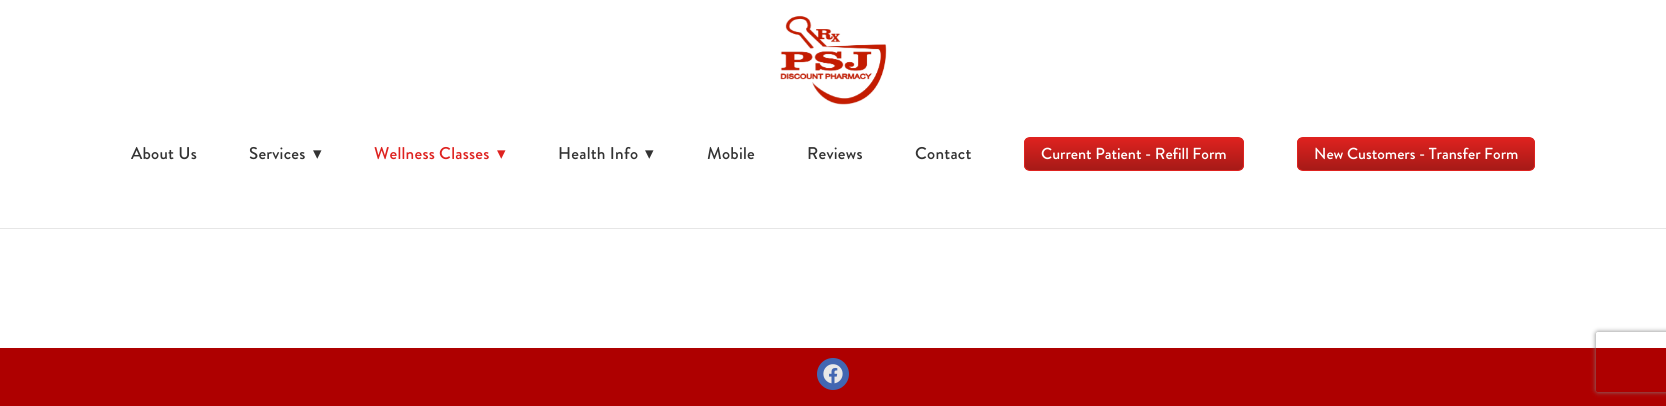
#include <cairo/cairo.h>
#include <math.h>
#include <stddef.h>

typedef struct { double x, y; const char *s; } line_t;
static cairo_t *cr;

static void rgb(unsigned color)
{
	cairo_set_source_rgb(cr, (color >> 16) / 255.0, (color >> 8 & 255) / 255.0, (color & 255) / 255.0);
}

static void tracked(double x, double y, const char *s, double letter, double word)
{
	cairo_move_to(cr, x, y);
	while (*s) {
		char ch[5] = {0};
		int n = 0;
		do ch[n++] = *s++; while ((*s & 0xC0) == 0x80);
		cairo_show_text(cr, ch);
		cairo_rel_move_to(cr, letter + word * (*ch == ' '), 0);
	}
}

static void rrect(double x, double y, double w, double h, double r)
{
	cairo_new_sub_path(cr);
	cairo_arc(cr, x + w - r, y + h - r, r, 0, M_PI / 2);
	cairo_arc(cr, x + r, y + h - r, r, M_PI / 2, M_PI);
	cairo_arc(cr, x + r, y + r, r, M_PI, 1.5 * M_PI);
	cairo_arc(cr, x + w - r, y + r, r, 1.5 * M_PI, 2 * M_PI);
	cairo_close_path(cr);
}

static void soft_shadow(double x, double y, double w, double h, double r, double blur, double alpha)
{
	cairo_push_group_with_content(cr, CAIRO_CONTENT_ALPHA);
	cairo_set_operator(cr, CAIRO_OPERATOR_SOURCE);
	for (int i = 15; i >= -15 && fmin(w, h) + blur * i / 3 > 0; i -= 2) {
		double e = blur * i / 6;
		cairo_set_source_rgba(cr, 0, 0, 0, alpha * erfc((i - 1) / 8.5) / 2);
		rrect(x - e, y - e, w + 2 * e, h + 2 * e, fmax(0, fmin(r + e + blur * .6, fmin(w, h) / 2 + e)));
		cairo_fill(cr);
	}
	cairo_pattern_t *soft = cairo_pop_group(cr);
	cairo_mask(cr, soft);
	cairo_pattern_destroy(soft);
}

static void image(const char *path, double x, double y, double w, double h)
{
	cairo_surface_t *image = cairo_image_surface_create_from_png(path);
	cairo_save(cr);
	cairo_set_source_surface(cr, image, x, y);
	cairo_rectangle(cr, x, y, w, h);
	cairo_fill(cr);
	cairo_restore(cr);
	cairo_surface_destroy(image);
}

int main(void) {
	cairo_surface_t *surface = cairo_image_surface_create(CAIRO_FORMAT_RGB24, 1666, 406);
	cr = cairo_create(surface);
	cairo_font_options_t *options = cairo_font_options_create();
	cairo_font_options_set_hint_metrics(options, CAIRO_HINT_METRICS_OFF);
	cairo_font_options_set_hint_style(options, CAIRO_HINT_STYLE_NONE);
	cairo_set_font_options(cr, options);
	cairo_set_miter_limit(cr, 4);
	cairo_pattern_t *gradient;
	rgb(0xffffff);
	cairo_paint(cr);
	image("img/1.png", 780, 15, 107, 90);
	rgb(0xe6e6e6);
	cairo_rectangle(cr, 0, 228, 1666, 1);
	cairo_fill(cr);
	cairo_save(cr);
	rrect(1024, 137, 220, 34, 6);
	cairo_clip(cr);
	gradient = cairo_pattern_create_linear(1134, 138, 1134, 170);
	cairo_pattern_add_color_stop_rgba(gradient, 0, 0.871, 0.133, 0.122, 1);
	cairo_pattern_add_color_stop_rgba(gradient, 1, 0.651, 0.102, 0.09, 1);
	cairo_set_source(cr, gradient);
	cairo_pattern_destroy(gradient);
	cairo_rectangle(cr, 1024, 138, 220, 32);
	cairo_fill(cr);
	cairo_restore(cr);
	rrect(1024.5, 137.5, 219, 33, 5.5);
	rgb(0xde221f);
	cairo_set_line_width(cr, 1);
	cairo_stroke(cr);
	cairo_save(cr);
	rrect(1297, 137, 238, 34, 6);
	cairo_clip(cr);
	gradient = cairo_pattern_create_linear(1416, 138, 1416, 170);
	cairo_pattern_add_color_stop_rgba(gradient, 0, 0.871, 0.133, 0.122, 1);
	cairo_pattern_add_color_stop_rgba(gradient, 1, 0.651, 0.102, 0.09, 1);
	cairo_set_source(cr, gradient);
	cairo_pattern_destroy(gradient);
	cairo_rectangle(cr, 1297, 138, 238, 32);
	cairo_fill(cr);
	cairo_restore(cr);
	rrect(1297.5, 137.5, 237, 33, 5.5);
	cairo_stroke(cr);
	rgb(0xae0000);
	cairo_rectangle(cr, 0, 348, 1666, 58);
	cairo_fill(cr);
	rgb(0x4267b2);
	cairo_arc(cr, 833, 374, 16, 0, 2 * M_PI);
	cairo_fill(cr);
	image("img/2.png", 823, 364, 20, 20);
	cairo_save(cr);
	cairo_set_fill_rule(cr, CAIRO_FILL_RULE_EVEN_ODD);
	cairo_new_path(cr);
	cairo_move_to(cr, 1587, 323);
	cairo_line_to(cr, 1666, 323);
	cairo_line_to(cr, 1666, 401);
	cairo_line_to(cr, 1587, 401);
	cairo_close_path(cr);
	cairo_move_to(cr, 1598, 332);
	cairo_line_to(cr, 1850, 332);
	cairo_curve_to(cr, 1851, 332, 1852, 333, 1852, 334);
	cairo_line_to(cr, 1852, 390);
	cairo_curve_to(cr, 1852, 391, 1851, 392, 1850, 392);
	cairo_line_to(cr, 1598, 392);
	cairo_curve_to(cr, 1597, 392, 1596, 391, 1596, 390);
	cairo_line_to(cr, 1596, 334);
	cairo_curve_to(cr, 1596, 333, 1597, 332, 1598, 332);
	cairo_close_path(cr);
	cairo_clip(cr);
	rgb(0x808080);
	soft_shadow(1596, 332, 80, 60, 2, 2.5, 1);
	cairo_restore(cr);
	cairo_select_font_face(cr, "Brandon Grotesque Medium", CAIRO_FONT_SLANT_NORMAL, CAIRO_FONT_WEIGHT_NORMAL);
	cairo_set_font_size(cr, 17);
	rgb(0x333333);
	tracked(131, 159, "About Us", 0.25, 0);
	tracked(249, 159, "Services", 0.25, 0);
	cairo_select_font_face(cr, "DejaVu Sans", CAIRO_FONT_SLANT_NORMAL, CAIRO_FONT_WEIGHT_NORMAL);
	tracked(313, 159, "▾", 0.25, 0);
	cairo_select_font_face(cr, "Brandon Grotesque Medium", CAIRO_FONT_SLANT_NORMAL, CAIRO_FONT_WEIGHT_NORMAL);
	rgb(0xde221f);
	tracked(374, 159, "Wellness Classes", 0.25, 0);
	cairo_select_font_face(cr, "DejaVu Sans", CAIRO_FONT_SLANT_NORMAL, CAIRO_FONT_WEIGHT_NORMAL);
	tracked(497, 159, "▾", 0.25, 0);
	cairo_select_font_face(cr, "Brandon Grotesque Medium", CAIRO_FONT_SLANT_NORMAL, CAIRO_FONT_WEIGHT_NORMAL);
	rgb(0x333333);
	tracked(558, 159, "Health Info", 0.25, 0);
	cairo_select_font_face(cr, "DejaVu Sans", CAIRO_FONT_SLANT_NORMAL, CAIRO_FONT_WEIGHT_NORMAL);
	tracked(645, 159, "▾", 0.25, 0);
	cairo_select_font_face(cr, "Brandon Grotesque Medium", CAIRO_FONT_SLANT_NORMAL, CAIRO_FONT_WEIGHT_NORMAL);
	{
		static const line_t items[] = {
			{707, 159, "Mobile"},
			{807, 159, "Reviews"},
			{915, 159, "Contact"},
		};
		for (size_t i = 0; i < sizeof items / sizeof *items; i++) {
			tracked(items[i].x, items[i].y, items[i].s, 0.25, 0);
		}
	}
	cairo_set_font_size(cr, 16);
	rgb(0xffffff);
	cairo_move_to(cr, 1041, 159);
	cairo_show_text(cr, "Current Patient - Refill Form");
	cairo_move_to(cr, 1314, 159);
	cairo_show_text(cr, "New Customers - Transfer Form");
	cairo_surface_write_to_png(surface, "page.png");
	cairo_font_options_destroy(options);
	cairo_destroy(cr);
	cairo_surface_destroy(surface);
	return 0;
}
